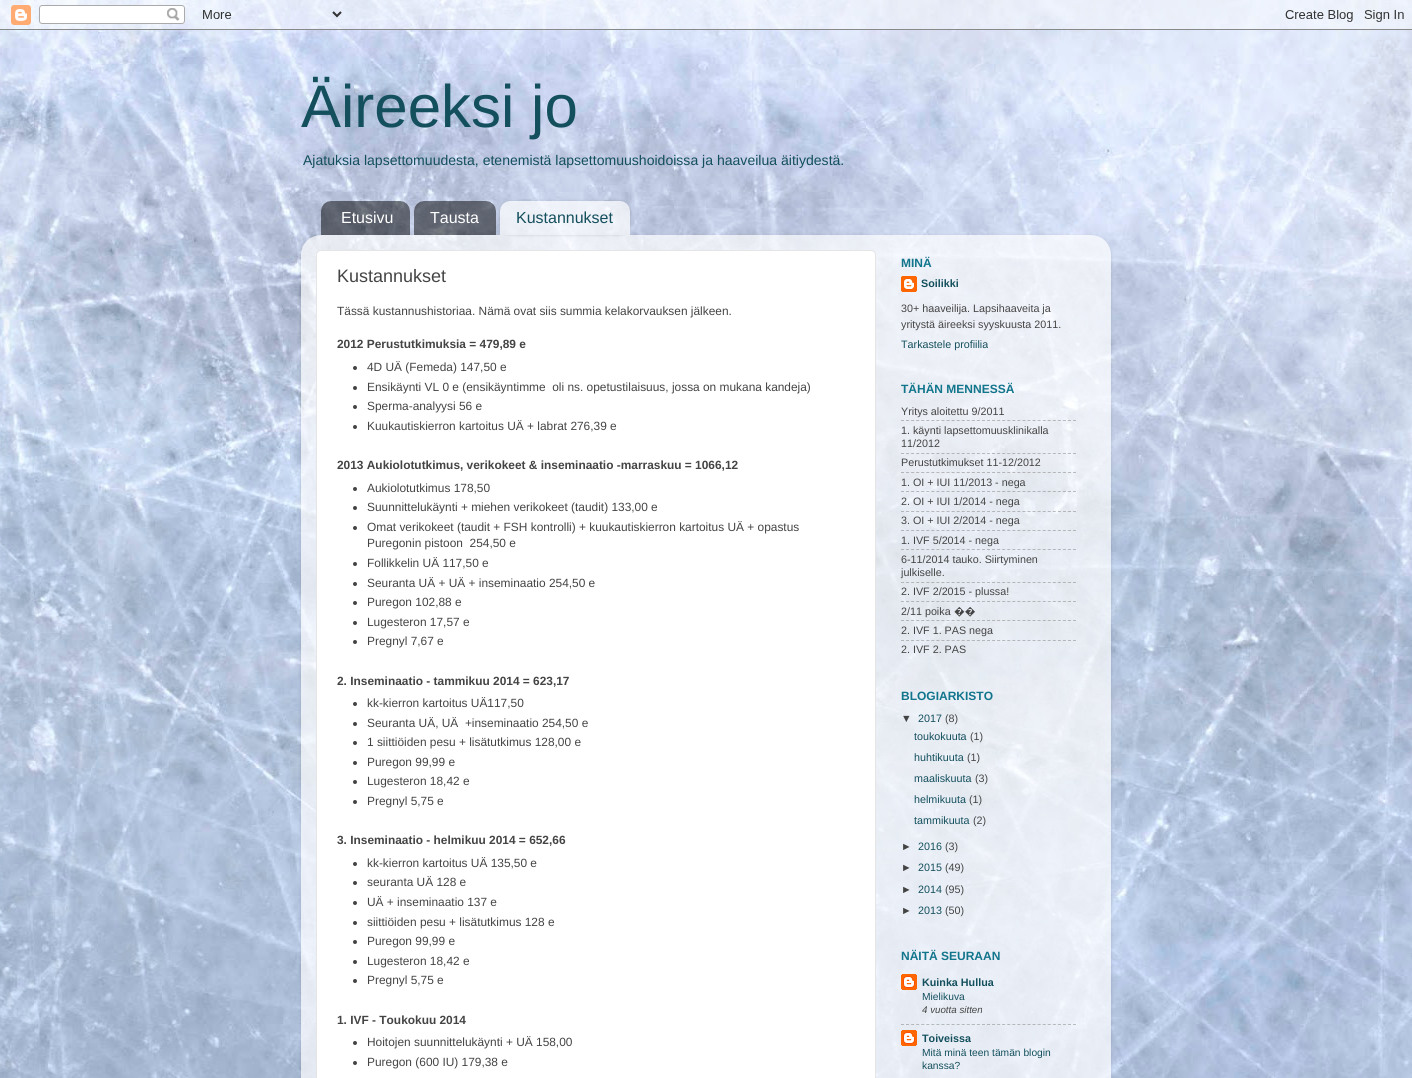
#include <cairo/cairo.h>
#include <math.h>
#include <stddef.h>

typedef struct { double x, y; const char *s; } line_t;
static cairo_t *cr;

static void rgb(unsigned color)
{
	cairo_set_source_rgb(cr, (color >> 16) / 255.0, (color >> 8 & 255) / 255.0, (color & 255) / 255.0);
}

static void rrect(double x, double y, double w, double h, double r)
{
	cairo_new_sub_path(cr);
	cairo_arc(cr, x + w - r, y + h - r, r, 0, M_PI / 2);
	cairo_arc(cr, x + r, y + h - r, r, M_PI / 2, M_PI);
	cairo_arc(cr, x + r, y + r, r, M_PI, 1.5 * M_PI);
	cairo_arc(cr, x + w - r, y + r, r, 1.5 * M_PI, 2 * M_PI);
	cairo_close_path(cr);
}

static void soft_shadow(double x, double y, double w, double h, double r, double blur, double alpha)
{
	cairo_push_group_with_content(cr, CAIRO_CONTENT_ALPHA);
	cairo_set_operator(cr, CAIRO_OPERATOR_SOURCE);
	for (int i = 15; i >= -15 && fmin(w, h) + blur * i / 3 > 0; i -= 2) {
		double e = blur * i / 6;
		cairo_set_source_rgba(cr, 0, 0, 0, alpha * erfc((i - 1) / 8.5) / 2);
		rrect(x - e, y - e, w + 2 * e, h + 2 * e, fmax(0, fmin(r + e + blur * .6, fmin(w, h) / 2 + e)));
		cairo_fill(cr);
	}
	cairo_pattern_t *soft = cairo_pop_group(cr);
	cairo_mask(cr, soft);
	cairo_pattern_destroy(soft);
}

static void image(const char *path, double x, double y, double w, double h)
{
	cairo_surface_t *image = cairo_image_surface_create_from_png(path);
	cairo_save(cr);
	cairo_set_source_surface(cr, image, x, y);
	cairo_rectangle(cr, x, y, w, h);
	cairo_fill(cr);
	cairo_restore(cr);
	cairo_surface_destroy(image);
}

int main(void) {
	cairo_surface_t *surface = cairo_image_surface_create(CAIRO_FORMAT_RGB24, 1412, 1078);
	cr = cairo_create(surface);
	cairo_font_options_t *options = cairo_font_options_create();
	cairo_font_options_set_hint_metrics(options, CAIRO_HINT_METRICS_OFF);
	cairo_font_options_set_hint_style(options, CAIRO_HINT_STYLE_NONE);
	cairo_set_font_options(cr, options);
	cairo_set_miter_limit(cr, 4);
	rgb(0xffffff);
	cairo_paint(cr);
	image("img/1.png", 0, 0, 1412, 1078);
	image("img/2.png", 0, 0, 1412, 30);
	image("img/3.png", 321, 201, 89, 34);
	image("img/4.png", 414, 201, 82, 34);
	cairo_save(cr);
	cairo_set_fill_rule(cr, CAIRO_FILL_RULE_EVEN_ODD);
	cairo_new_path(cr);
	cairo_move_to(cr, 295, 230);
	cairo_line_to(cr, 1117, 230);
	cairo_line_to(cr, 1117, 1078);
	cairo_line_to(cr, 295, 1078);
	cairo_close_path(cr);
	cairo_move_to(cr, 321, 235);
	cairo_line_to(cr, 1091, 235);
	cairo_curve_to(cr, 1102, 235, 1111, 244, 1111, 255);
	cairo_line_to(cr, 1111, 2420);
	cairo_line_to(cr, 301, 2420);
	cairo_line_to(cr, 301, 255);
	cairo_curve_to(cr, 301, 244, 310, 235, 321, 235);
	cairo_close_path(cr);
	cairo_clip(cr);
	rgb(0x000000);
	soft_shadow(301, 236, 810, 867, 20, 1.5, 0.15);
	cairo_restore(cr);
	image("img/6.png", 301, 235, 810, 843);
	cairo_save(cr);
	cairo_set_fill_rule(cr, CAIRO_FILL_RULE_EVEN_ODD);
	cairo_new_path(cr);
	cairo_move_to(cr, 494, 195);
	cairo_line_to(cr, 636, 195);
	cairo_line_to(cr, 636, 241);
	cairo_line_to(cr, 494, 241);
	cairo_close_path(cr);
	cairo_move_to(cr, 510, 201);
	cairo_line_to(cr, 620, 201);
	cairo_curve_to(cr, 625.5, 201, 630, 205.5, 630, 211);
	cairo_line_to(cr, 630, 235);
	cairo_line_to(cr, 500, 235);
	cairo_line_to(cr, 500, 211);
	cairo_curve_to(cr, 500, 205.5, 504.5, 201, 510, 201);
	cairo_close_path(cr);
	cairo_clip(cr);
	rgb(0x000000);
	soft_shadow(500, 201, 130, 34, 10, 1.5, 0.15);
	cairo_restore(cr);
	image("img/5.png", 500, 201, 130, 34);
	rgb(0xffffff);
	rrect(316.5, 250.5, 559, 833, 4.5);
	cairo_fill_preserve(cr);
	rgb(0xe5e5e5);
	cairo_set_line_width(cr, 1);
	cairo_stroke(cr);
	rgb(0x444444);
	cairo_arc(cr, 355, 368, 2, 0, 2 * M_PI);
	cairo_fill(cr);
	cairo_arc(cr, 355, 388, 2, 0, 2 * M_PI);
	cairo_fill(cr);
	cairo_arc(cr, 355, 407, 2, 0, 2 * M_PI);
	cairo_fill(cr);
	cairo_arc(cr, 355, 427, 2, 0, 2 * M_PI);
	cairo_fill(cr);
	cairo_arc(cr, 355, 489, 2, 0, 2 * M_PI);
	cairo_fill(cr);
	cairo_arc(cr, 355, 508, 2, 0, 2 * M_PI);
	cairo_fill(cr);
	cairo_arc(cr, 355, 528, 2, 0, 2 * M_PI);
	cairo_fill(cr);
	cairo_arc(cr, 355, 564, 2, 0, 2 * M_PI);
	cairo_fill(cr);
	cairo_arc(cr, 355, 584, 2, 0, 2 * M_PI);
	cairo_fill(cr);
	cairo_arc(cr, 355, 603, 2, 0, 2 * M_PI);
	cairo_fill(cr);
	cairo_arc(cr, 355, 623, 2, 0, 2 * M_PI);
	cairo_fill(cr);
	cairo_arc(cr, 355, 642, 2, 0, 2 * M_PI);
	cairo_fill(cr);
	cairo_arc(cr, 355, 704, 2, 0, 2 * M_PI);
	cairo_fill(cr);
	cairo_arc(cr, 355, 724, 2, 0, 2 * M_PI);
	cairo_fill(cr);
	cairo_arc(cr, 355, 743, 2, 0, 2 * M_PI);
	cairo_fill(cr);
	cairo_arc(cr, 355, 763, 2, 0, 2 * M_PI);
	cairo_fill(cr);
	cairo_arc(cr, 355, 782, 2, 0, 2 * M_PI);
	cairo_fill(cr);
	cairo_arc(cr, 355, 802, 2, 0, 2 * M_PI);
	cairo_fill(cr);
	cairo_arc(cr, 355, 864, 2, 0, 2 * M_PI);
	cairo_fill(cr);
	cairo_arc(cr, 355, 883, 2, 0, 2 * M_PI);
	cairo_fill(cr);
	cairo_arc(cr, 355, 903, 2, 0, 2 * M_PI);
	cairo_fill(cr);
	cairo_arc(cr, 355, 923, 2, 0, 2 * M_PI);
	cairo_fill(cr);
	cairo_arc(cr, 355, 942, 2, 0, 2 * M_PI);
	cairo_fill(cr);
	cairo_arc(cr, 355, 962, 2, 0, 2 * M_PI);
	cairo_fill(cr);
	cairo_arc(cr, 355, 981, 2, 0, 2 * M_PI);
	cairo_fill(cr);
	cairo_arc(cr, 355, 1043, 2, 0, 2 * M_PI);
	cairo_fill(cr);
	cairo_arc(cr, 355, 1063, 2, 0, 2 * M_PI);
	cairo_fill(cr);
	image("img/7.png", 901, 276, 16, 16);
	cairo_new_path(cr);
	cairo_move_to(cr, 901, 420.5);
	cairo_line_to(cr, 1076, 420.5);
	cairo_set_source_rgba(cr, 0.502, 0.502, 0.502, 0.5);
	cairo_set_dash(cr, (double[]){3, 2.06}, 2, 0);
	cairo_stroke(cr);
	cairo_new_path(cr);
	cairo_move_to(cr, 901, 453.5);
	cairo_line_to(cr, 1076, 453.5);
	cairo_stroke(cr);
	cairo_new_path(cr);
	cairo_move_to(cr, 901, 472.5);
	cairo_line_to(cr, 1076, 472.5);
	cairo_stroke(cr);
	cairo_new_path(cr);
	cairo_move_to(cr, 901, 491.5);
	cairo_line_to(cr, 1076, 491.5);
	cairo_stroke(cr);
	cairo_new_path(cr);
	cairo_move_to(cr, 901, 511.5);
	cairo_line_to(cr, 1076, 511.5);
	cairo_stroke(cr);
	cairo_new_path(cr);
	cairo_move_to(cr, 901, 530.5);
	cairo_line_to(cr, 1076, 530.5);
	cairo_stroke(cr);
	cairo_new_path(cr);
	cairo_move_to(cr, 901, 549.5);
	cairo_line_to(cr, 1076, 549.5);
	cairo_stroke(cr);
	cairo_new_path(cr);
	cairo_move_to(cr, 901, 582.5);
	cairo_line_to(cr, 1076, 582.5);
	cairo_stroke(cr);
	cairo_new_path(cr);
	cairo_move_to(cr, 901, 601.5);
	cairo_line_to(cr, 1076, 601.5);
	cairo_stroke(cr);
	cairo_new_path(cr);
	cairo_move_to(cr, 901, 620.5);
	cairo_line_to(cr, 1076, 620.5);
	cairo_stroke(cr);
	cairo_new_path(cr);
	cairo_move_to(cr, 901, 640.5);
	cairo_line_to(cr, 1076, 640.5);
	cairo_stroke(cr);
	image("img/8.png", 901, 974, 16, 16);
	cairo_new_path(cr);
	cairo_move_to(cr, 901, 1024.5);
	cairo_line_to(cr, 1076, 1024.5);
	cairo_stroke(cr);
	image("img/9.png", 901, 1030, 16, 16);
	cairo_select_font_face(cr, "Liberation Sans", CAIRO_FONT_SLANT_NORMAL, CAIRO_FONT_WEIGHT_NORMAL);
	cairo_set_font_size(cr, 60);
	rgb(0x134f5c);
	cairo_move_to(cr, 301, 127);
	cairo_show_text(cr, "Äireeksi jo");
	cairo_set_font_size(cr, 14.05);
	cairo_move_to(cr, 303, 165);
	cairo_show_text(cr, "Ajatuksia lapsettomuudesta, etenemistä lapsettomuushoidoissa ja haaveilua äitiydestä.");
	cairo_set_font_size(cr, 16);
	rgb(0xffffff);
	cairo_move_to(cr, 341, 223);
	cairo_show_text(cr, "Etusivu");
	cairo_move_to(cr, 430, 223);
	cairo_show_text(cr, "Tausta");
	rgb(0x134f5c);
	cairo_move_to(cr, 516, 223);
	cairo_show_text(cr, "Kustannukset");
	cairo_set_font_size(cr, 18);
	rgb(0x444444);
	cairo_move_to(cr, 337, 282);
	cairo_show_text(cr, "Kustannukset");
	cairo_set_font_size(cr, 11.9);
	cairo_move_to(cr, 337, 315);
	cairo_show_text(cr, "Tässä kustannushistoriaa. Nämä ovat siis summia kelakorvauksen jälkeen.");
	cairo_select_font_face(cr, "Liberation Sans", CAIRO_FONT_SLANT_NORMAL, CAIRO_FONT_WEIGHT_BOLD);
	cairo_move_to(cr, 337, 348);
	cairo_show_text(cr, "2012 Perustutkimuksia = 479,89 e");
	cairo_select_font_face(cr, "Liberation Sans", CAIRO_FONT_SLANT_NORMAL, CAIRO_FONT_WEIGHT_NORMAL);
	{
		static const line_t items[] = {
			{367, 371, "4D UÄ (Femeda) 147,50 e"},
			{367, 391, "Ensikäynti VL 0 e (ensikäyntimme  oli ns. opetustilaisuus, jossa on mukana kandeja)"},
			{367, 410, "Sperma-analyysi 56 e"},
			{367, 430, "Kuukautiskierron kartoitus UÄ + labrat 276,39 e"},
		};
		for (size_t i = 0; i < sizeof items / sizeof *items; i++) {
			cairo_move_to(cr, items[i].x, items[i].y);
			cairo_show_text(cr, items[i].s);
		}
	}
	cairo_select_font_face(cr, "Liberation Sans", CAIRO_FONT_SLANT_NORMAL, CAIRO_FONT_WEIGHT_BOLD);
	cairo_move_to(cr, 337, 469);
	cairo_show_text(cr, "2013 Aukiolotutkimus, verikokeet & inseminaatio -marraskuu = 1066,12");
	cairo_select_font_face(cr, "Liberation Sans", CAIRO_FONT_SLANT_NORMAL, CAIRO_FONT_WEIGHT_NORMAL);
	{
		static const line_t items[] = {
			{367, 492, "Aukiolotutkimus 178,50"},
			{367, 511, "Suunnittelukäynti + miehen verikokeet (taudit) 133,00 e"},
			{367, 531, "Omat verikokeet (taudit + FSH kontrolli) + kuukautiskierron kartoitus UÄ + opastus"},
			{367, 547, "Puregonin pistoon  254,50 e"},
			{367, 567, "Follikkelin UÄ 117,50 e"},
			{367, 587, "Seuranta UÄ + UÄ + inseminaatio 254,50 e"},
			{367, 606, "Puregon 102,88 e"},
			{367, 626, "Lugesteron 17,57 e"},
			{367, 645, "Pregnyl 7,67 e"},
		};
		for (size_t i = 0; i < sizeof items / sizeof *items; i++) {
			cairo_move_to(cr, items[i].x, items[i].y);
			cairo_show_text(cr, items[i].s);
		}
	}
	cairo_select_font_face(cr, "Liberation Sans", CAIRO_FONT_SLANT_NORMAL, CAIRO_FONT_WEIGHT_BOLD);
	cairo_move_to(cr, 337, 685);
	cairo_show_text(cr, "2. Inseminaatio - tammikuu 2014 = 623,17");
	cairo_select_font_face(cr, "Liberation Sans", CAIRO_FONT_SLANT_NORMAL, CAIRO_FONT_WEIGHT_NORMAL);
	{
		static const line_t items[] = {
			{367, 707, "kk-kierron kartoitus UÄ117,50"},
			{367, 727, "Seuranta UÄ, UÄ  +inseminaatio 254,50 e"},
			{367, 746, "1 siittiöiden pesu + lisätutkimus 128,00 e"},
			{367, 766, "Puregon 99,99 e"},
			{367, 785, "Lugesteron 18,42 e"},
			{367, 805, "Pregnyl 5,75 e"},
		};
		for (size_t i = 0; i < sizeof items / sizeof *items; i++) {
			cairo_move_to(cr, items[i].x, items[i].y);
			cairo_show_text(cr, items[i].s);
		}
	}
	cairo_select_font_face(cr, "Liberation Sans", CAIRO_FONT_SLANT_NORMAL, CAIRO_FONT_WEIGHT_BOLD);
	cairo_move_to(cr, 337, 844);
	cairo_show_text(cr, "3. Inseminaatio - helmikuu 2014 = 652,66");
	cairo_select_font_face(cr, "Liberation Sans", CAIRO_FONT_SLANT_NORMAL, CAIRO_FONT_WEIGHT_NORMAL);
	{
		static const line_t items[] = {
			{367, 867, "kk-kierron kartoitus UÄ 135,50 e"},
			{367, 886, "seuranta UÄ 128 e"},
			{367, 906, "UÄ + inseminaatio 137 e"},
			{367, 926, "siittiöiden pesu + lisätutkimus 128 e"},
			{367, 945, "Puregon 99,99 e"},
			{367, 965, "Lugesteron 18,42 e"},
			{367, 984, "Pregnyl 5,75 e"},
		};
		for (size_t i = 0; i < sizeof items / sizeof *items; i++) {
			cairo_move_to(cr, items[i].x, items[i].y);
			cairo_show_text(cr, items[i].s);
		}
	}
	cairo_select_font_face(cr, "Liberation Sans", CAIRO_FONT_SLANT_NORMAL, CAIRO_FONT_WEIGHT_BOLD);
	cairo_move_to(cr, 337, 1024);
	cairo_show_text(cr, "1. IVF - Toukokuu 2014");
	cairo_select_font_face(cr, "Liberation Sans", CAIRO_FONT_SLANT_NORMAL, CAIRO_FONT_WEIGHT_NORMAL);
	cairo_move_to(cr, 367, 1046);
	cairo_show_text(cr, "Hoitojen suunnittelukäynti + UÄ 158,00");
	cairo_move_to(cr, 367, 1066);
	cairo_show_text(cr, "Puregon (600 IU) 179,38 e");
	cairo_select_font_face(cr, "Liberation Sans", CAIRO_FONT_SLANT_NORMAL, CAIRO_FONT_WEIGHT_BOLD);
	cairo_set_font_size(cr, 12);
	rgb(0x11758c);
	cairo_move_to(cr, 901, 267);
	cairo_show_text(cr, "MINÄ");
	cairo_set_font_size(cr, 10.75);
	rgb(0x134f5c);
	cairo_move_to(cr, 921, 287);
	cairo_show_text(cr, "Soilikki");
	cairo_select_font_face(cr, "Liberation Sans", CAIRO_FONT_SLANT_NORMAL, CAIRO_FONT_WEIGHT_NORMAL);
	rgb(0x444444);
	cairo_move_to(cr, 901, 312);
	cairo_show_text(cr, "30+ haaveilija. Lapsihaaveita ja");
	cairo_move_to(cr, 901, 328);
	cairo_show_text(cr, "yritystä äireeksi syyskuusta 2011.");
	rgb(0x134f5c);
	cairo_move_to(cr, 901, 348);
	cairo_show_text(cr, "Tarkastele profiilia");
	cairo_select_font_face(cr, "Liberation Sans", CAIRO_FONT_SLANT_NORMAL, CAIRO_FONT_WEIGHT_BOLD);
	cairo_set_font_size(cr, 12);
	rgb(0x11758c);
	cairo_move_to(cr, 901, 393);
	cairo_show_text(cr, "TÄHÄN MENNESSÄ");
	cairo_select_font_face(cr, "Liberation Sans", CAIRO_FONT_SLANT_NORMAL, CAIRO_FONT_WEIGHT_NORMAL);
	cairo_set_font_size(cr, 10.75);
	rgb(0x444444);
	{
		static const line_t items[] = {
			{901, 415, "Yritys aloitettu 9/2011"},
			{901, 434, "1. käynti lapsettomuusklinikalla"},
			{901, 447, "11/2012"},
			{901, 466, "Perustutkimukset 11-12/2012"},
			{901, 486, "1. OI + IUI 11/2013 - nega"},
			{901, 505, "2. OI + IUI 1/2014 - nega"},
			{901, 524, "3. OI + IUI 2/2014 - nega"},
			{901, 544, "1. IVF 5/2014 - nega"},
			{901, 563, "6-11/2014 tauko. Siirtyminen"},
			{901, 576, "julkiselle."},
			{901, 595, "2. IVF 2/2015 - plussa!"},
			{901, 615, "2/11 poika"},
		};
		for (size_t i = 0; i < sizeof items / sizeof *items; i++) {
			cairo_move_to(cr, items[i].x, items[i].y);
			cairo_show_text(cr, items[i].s);
		}
	}
	cairo_select_font_face(cr, "Noto Sans", CAIRO_FONT_SLANT_NORMAL, CAIRO_FONT_WEIGHT_NORMAL);
	cairo_move_to(cr, 954, 615);
	cairo_show_text(cr, "��");
	cairo_select_font_face(cr, "Liberation Sans", CAIRO_FONT_SLANT_NORMAL, CAIRO_FONT_WEIGHT_NORMAL);
	cairo_move_to(cr, 901, 634);
	cairo_show_text(cr, "2. IVF 1. PAS nega");
	cairo_move_to(cr, 901, 653);
	cairo_show_text(cr, "2. IVF 2. PAS");
	cairo_select_font_face(cr, "Liberation Sans", CAIRO_FONT_SLANT_NORMAL, CAIRO_FONT_WEIGHT_BOLD);
	cairo_set_font_size(cr, 12);
	rgb(0x11758c);
	cairo_move_to(cr, 901, 700);
	cairo_show_text(cr, "BLOGIARKISTO");
	cairo_select_font_face(cr, "Liberation Sans", CAIRO_FONT_SLANT_NORMAL, CAIRO_FONT_WEIGHT_NORMAL);
	cairo_set_font_size(cr, 10.75);
	rgb(0x444444);
	cairo_move_to(cr, 901, 722);
	cairo_show_text(cr, "▼");
	rgb(0x134f5c);
	cairo_move_to(cr, 918, 722);
	cairo_show_text(cr, "2017");
	rgb(0x444444);
	cairo_move_to(cr, 945, 722);
	cairo_show_text(cr, "(8)");
	rgb(0x134f5c);
	cairo_move_to(cr, 914, 740);
	cairo_show_text(cr, "toukokuuta");
	rgb(0x444444);
	cairo_move_to(cr, 970, 740);
	cairo_show_text(cr, "(1)");
	rgb(0x134f5c);
	cairo_move_to(cr, 914, 761);
	cairo_show_text(cr, "huhtikuuta");
	rgb(0x444444);
	cairo_move_to(cr, 967, 761);
	cairo_show_text(cr, "(1)");
	rgb(0x134f5c);
	cairo_move_to(cr, 914, 782);
	cairo_show_text(cr, "maaliskuuta");
	rgb(0x444444);
	cairo_move_to(cr, 975, 782);
	cairo_show_text(cr, "(3)");
	rgb(0x134f5c);
	cairo_move_to(cr, 914, 803);
	cairo_show_text(cr, "helmikuuta");
	rgb(0x444444);
	cairo_move_to(cr, 969, 803);
	cairo_show_text(cr, "(1)");
	rgb(0x134f5c);
	cairo_move_to(cr, 914, 824);
	cairo_show_text(cr, "tammikuuta");
	rgb(0x444444);
	cairo_move_to(cr, 973, 824);
	cairo_show_text(cr, "(2)");
	cairo_move_to(cr, 901, 850);
	cairo_show_text(cr, "►");
	rgb(0x134f5c);
	cairo_move_to(cr, 918, 850);
	cairo_show_text(cr, "2016");
	rgb(0x444444);
	cairo_move_to(cr, 945, 850);
	cairo_show_text(cr, "(3)");
	cairo_move_to(cr, 901, 871);
	cairo_show_text(cr, "►");
	rgb(0x134f5c);
	cairo_move_to(cr, 918, 871);
	cairo_show_text(cr, "2015");
	rgb(0x444444);
	cairo_move_to(cr, 945, 871);
	cairo_show_text(cr, "(49)");
	cairo_move_to(cr, 901, 893);
	cairo_show_text(cr, "►");
	rgb(0x134f5c);
	cairo_move_to(cr, 918, 893);
	cairo_show_text(cr, "2014");
	rgb(0x444444);
	cairo_move_to(cr, 945, 893);
	cairo_show_text(cr, "(95)");
	cairo_move_to(cr, 901, 914);
	cairo_show_text(cr, "►");
	rgb(0x134f5c);
	cairo_move_to(cr, 918, 914);
	cairo_show_text(cr, "2013");
	rgb(0x444444);
	cairo_move_to(cr, 945, 914);
	cairo_show_text(cr, "(50)");
	cairo_select_font_face(cr, "Liberation Sans", CAIRO_FONT_SLANT_NORMAL, CAIRO_FONT_WEIGHT_BOLD);
	cairo_set_font_size(cr, 12);
	rgb(0x11758c);
	cairo_move_to(cr, 901, 960);
	cairo_show_text(cr, "NÄITÄ SEURAAN");
	cairo_set_font_size(cr, 10.75);
	rgb(0x134f5c);
	cairo_move_to(cr, 922, 986);
	cairo_show_text(cr, "Kuinka Hullua");
	cairo_select_font_face(cr, "Liberation Sans", CAIRO_FONT_SLANT_NORMAL, CAIRO_FONT_WEIGHT_NORMAL);
	cairo_set_font_size(cr, 10.25);
	cairo_move_to(cr, 922, 1000);
	cairo_show_text(cr, "Mielikuva");
	cairo_select_font_face(cr, "Liberation Sans", CAIRO_FONT_SLANT_ITALIC, CAIRO_FONT_WEIGHT_NORMAL);
	cairo_set_font_size(cr, 9.75);
	rgb(0x444444);
	cairo_move_to(cr, 922, 1013);
	cairo_show_text(cr, "4 vuotta sitten");
	cairo_select_font_face(cr, "Liberation Sans", CAIRO_FONT_SLANT_NORMAL, CAIRO_FONT_WEIGHT_BOLD);
	cairo_set_font_size(cr, 10.75);
	rgb(0x134f5c);
	cairo_move_to(cr, 922, 1042);
	cairo_show_text(cr, "Toiveissa");
	cairo_select_font_face(cr, "Liberation Sans", CAIRO_FONT_SLANT_NORMAL, CAIRO_FONT_WEIGHT_NORMAL);
	cairo_set_font_size(cr, 10.25);
	cairo_move_to(cr, 922, 1056);
	cairo_show_text(cr, "Mitä minä teen tämän blogin");
	cairo_move_to(cr, 922, 1069);
	cairo_show_text(cr, "kanssa?");
	cairo_surface_write_to_png(surface, "page.png");
	cairo_font_options_destroy(options);
	cairo_destroy(cr);
	cairo_surface_destroy(surface);
	return 0;
}
